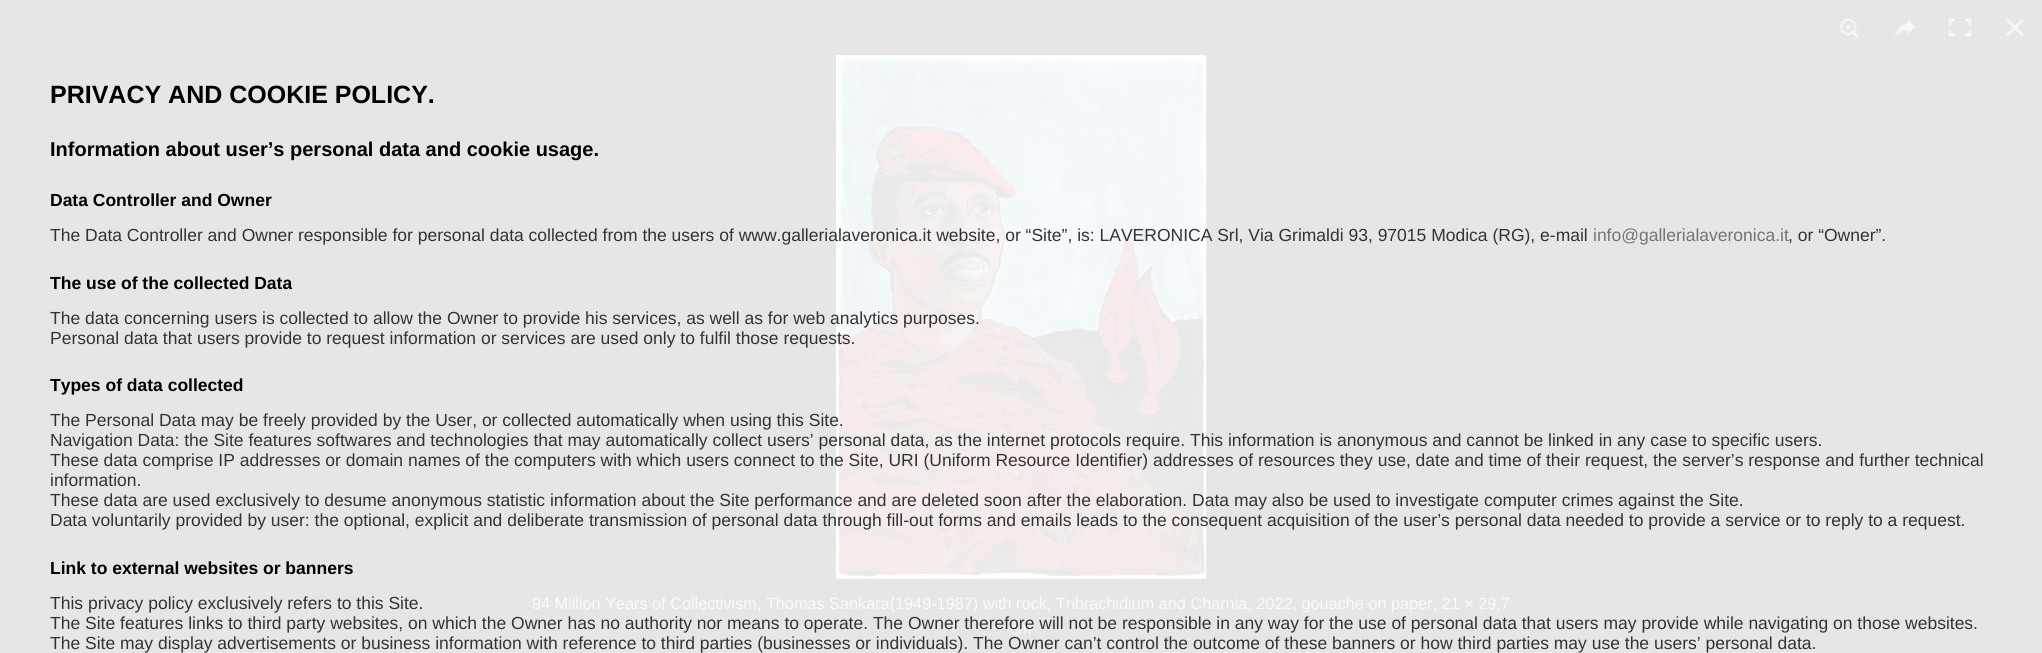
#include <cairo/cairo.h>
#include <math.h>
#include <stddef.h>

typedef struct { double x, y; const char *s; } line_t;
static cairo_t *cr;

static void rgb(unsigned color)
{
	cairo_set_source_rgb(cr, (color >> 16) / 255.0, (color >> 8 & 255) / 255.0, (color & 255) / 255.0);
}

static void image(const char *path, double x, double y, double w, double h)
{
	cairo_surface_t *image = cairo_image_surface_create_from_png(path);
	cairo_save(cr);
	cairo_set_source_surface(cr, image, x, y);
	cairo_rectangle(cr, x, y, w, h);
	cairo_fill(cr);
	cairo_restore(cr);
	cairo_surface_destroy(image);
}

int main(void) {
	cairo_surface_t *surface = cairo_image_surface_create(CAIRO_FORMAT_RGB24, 2042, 653);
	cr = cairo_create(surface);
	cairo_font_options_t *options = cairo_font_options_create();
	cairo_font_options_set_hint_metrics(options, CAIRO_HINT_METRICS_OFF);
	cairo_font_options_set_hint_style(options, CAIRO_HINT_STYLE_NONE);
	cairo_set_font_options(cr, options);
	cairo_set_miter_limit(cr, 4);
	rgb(0xe6e6e6);
	cairo_paint(cr);
	image("img/1.png", 836, 55, 371, 524);
	image("img/2.png", 1839, 18, 21, 20);
	image("img/3.png", 1894, 19, 22, 19);
	image("img/4.png", 1948, 18, 24, 19);
	image("img/5.png", 2005, 18, 20, 19);
	cairo_select_font_face(cr, "Liberation Sans", CAIRO_FONT_SLANT_NORMAL, CAIRO_FONT_WEIGHT_BOLD);
	cairo_set_font_size(cr, 25);
	rgb(0x000000);
	cairo_move_to(cr, 50, 103);
	cairo_show_text(cr, "PRIVACY AND COOKIE POLICY.");
	cairo_set_font_size(cr, 20);
	cairo_move_to(cr, 50, 156);
	cairo_show_text(cr, "Information about user’s personal data and cookie usage.");
	cairo_set_font_size(cr, 17.5);
	cairo_move_to(cr, 50, 206);
	cairo_show_text(cr, "Data Controller and Owner");
	cairo_select_font_face(cr, "Liberation Sans", CAIRO_FONT_SLANT_NORMAL, CAIRO_FONT_WEIGHT_NORMAL);
	rgb(0x333333);
	cairo_move_to(cr, 50, 241);
	cairo_show_text(cr, "The Data Controller and Owner responsible for personal data collected from the users of www.gallerialaveronica.it website, or “Site”, is: LAVERONICA Srl, Via Grimaldi 93, 97015 Modica (RG), e-mail");
	rgb(0x747474);
	cairo_move_to(cr, 1593, 241);
	cairo_show_text(cr, "info@gallerialaveronica.it");
	rgb(0x333333);
	cairo_move_to(cr, 1788, 241);
	cairo_show_text(cr, ", or “Owner”.");
	cairo_select_font_face(cr, "Liberation Sans", CAIRO_FONT_SLANT_NORMAL, CAIRO_FONT_WEIGHT_BOLD);
	rgb(0x000000);
	cairo_move_to(cr, 50, 289);
	cairo_show_text(cr, "The use of the collected Data");
	cairo_select_font_face(cr, "Liberation Sans", CAIRO_FONT_SLANT_NORMAL, CAIRO_FONT_WEIGHT_NORMAL);
	rgb(0x333333);
	cairo_move_to(cr, 50, 324);
	cairo_show_text(cr, "The data concerning users is collected to allow the Owner to provide his services, as well as for web analytics purposes.");
	cairo_move_to(cr, 50, 344);
	cairo_show_text(cr, "Personal data that users provide to request information or services are used only to fulfil those requests.");
	cairo_select_font_face(cr, "Liberation Sans", CAIRO_FONT_SLANT_NORMAL, CAIRO_FONT_WEIGHT_BOLD);
	rgb(0x000000);
	cairo_move_to(cr, 50, 391);
	cairo_show_text(cr, "Types of data collected");
	cairo_select_font_face(cr, "Liberation Sans", CAIRO_FONT_SLANT_NORMAL, CAIRO_FONT_WEIGHT_NORMAL);
	rgb(0x333333);
	{
		static const line_t items[] = {
			{50, 426, "The Personal Data may be freely provided by the User, or collected automatically when using this Site."},
			{50, 446, "Navigation Data: the Site features softwares and technologies that may automatically collect users’ personal data, as the internet protocols require. This information is anonymous and cannot be linked in any case to specific users."},
			{50, 466, "These data comprise IP addresses or domain names of the computers with which users connect to the Site, URI (Uniform Resource Identifier) addresses of resources they use, date and time of their request, the server’s response and further technical"},
			{50, 486, "information."},
			{50, 506, "These data are used exclusively to desume anonymous statistic information about the Site performance and are deleted soon after the elaboration. Data may also be used to investigate computer crimes against the Site."},
			{50, 526, "Data voluntarily provided by user: the optional, explicit and deliberate transmission of personal data through fill-out forms and emails leads to the consequent acquisition of the user’s personal data needed to provide a service or to reply to a request."},
		};
		for (size_t i = 0; i < sizeof items / sizeof *items; i++) {
			cairo_move_to(cr, items[i].x, items[i].y);
			cairo_show_text(cr, items[i].s);
		}
	}
	cairo_select_font_face(cr, "Liberation Sans", CAIRO_FONT_SLANT_NORMAL, CAIRO_FONT_WEIGHT_BOLD);
	rgb(0x000000);
	cairo_move_to(cr, 50, 574);
	cairo_show_text(cr, "Link to external websites or banners");
	cairo_select_font_face(cr, "Liberation Sans", CAIRO_FONT_SLANT_NORMAL, CAIRO_FONT_WEIGHT_NORMAL);
	rgb(0x333333);
	cairo_move_to(cr, 50, 609);
	cairo_show_text(cr, "This privacy policy exclusively refers to this Site.");
	cairo_move_to(cr, 50, 649);
	cairo_show_text(cr, "The Site may display advertisements or business information with reference to third parties (businesses or individuals). The Owner can’t control the outcome of these banners or how third parties may use the users’ personal data.");
	cairo_set_font_size(cr, 16.25);
	rgb(0xfafafa);
	cairo_move_to(cr, 532, 609);
	cairo_show_text(cr, "94 Million Years of Collectivism, Thomas Sankara(1949-1987) with rock, Tribrachidium and Charnia, 2022, gouache on paper, 21 × 29,7");
	cairo_move_to(cr, 1010, 634);
	cairo_show_text(cr, "cm");
	cairo_set_font_size(cr, 17.5);
	rgb(0x333333);
	cairo_move_to(cr, 50, 629);
	cairo_show_text(cr, "The Site features links to third party websites, on which the Owner has no authority nor means to operate. The Owner therefore will not be responsible in any way for the use of personal data that users may provide while navigating on those websites.");
	cairo_surface_write_to_png(surface, "page.png");
	cairo_font_options_destroy(options);
	cairo_destroy(cr);
	cairo_surface_destroy(surface);
	return 0;
}
